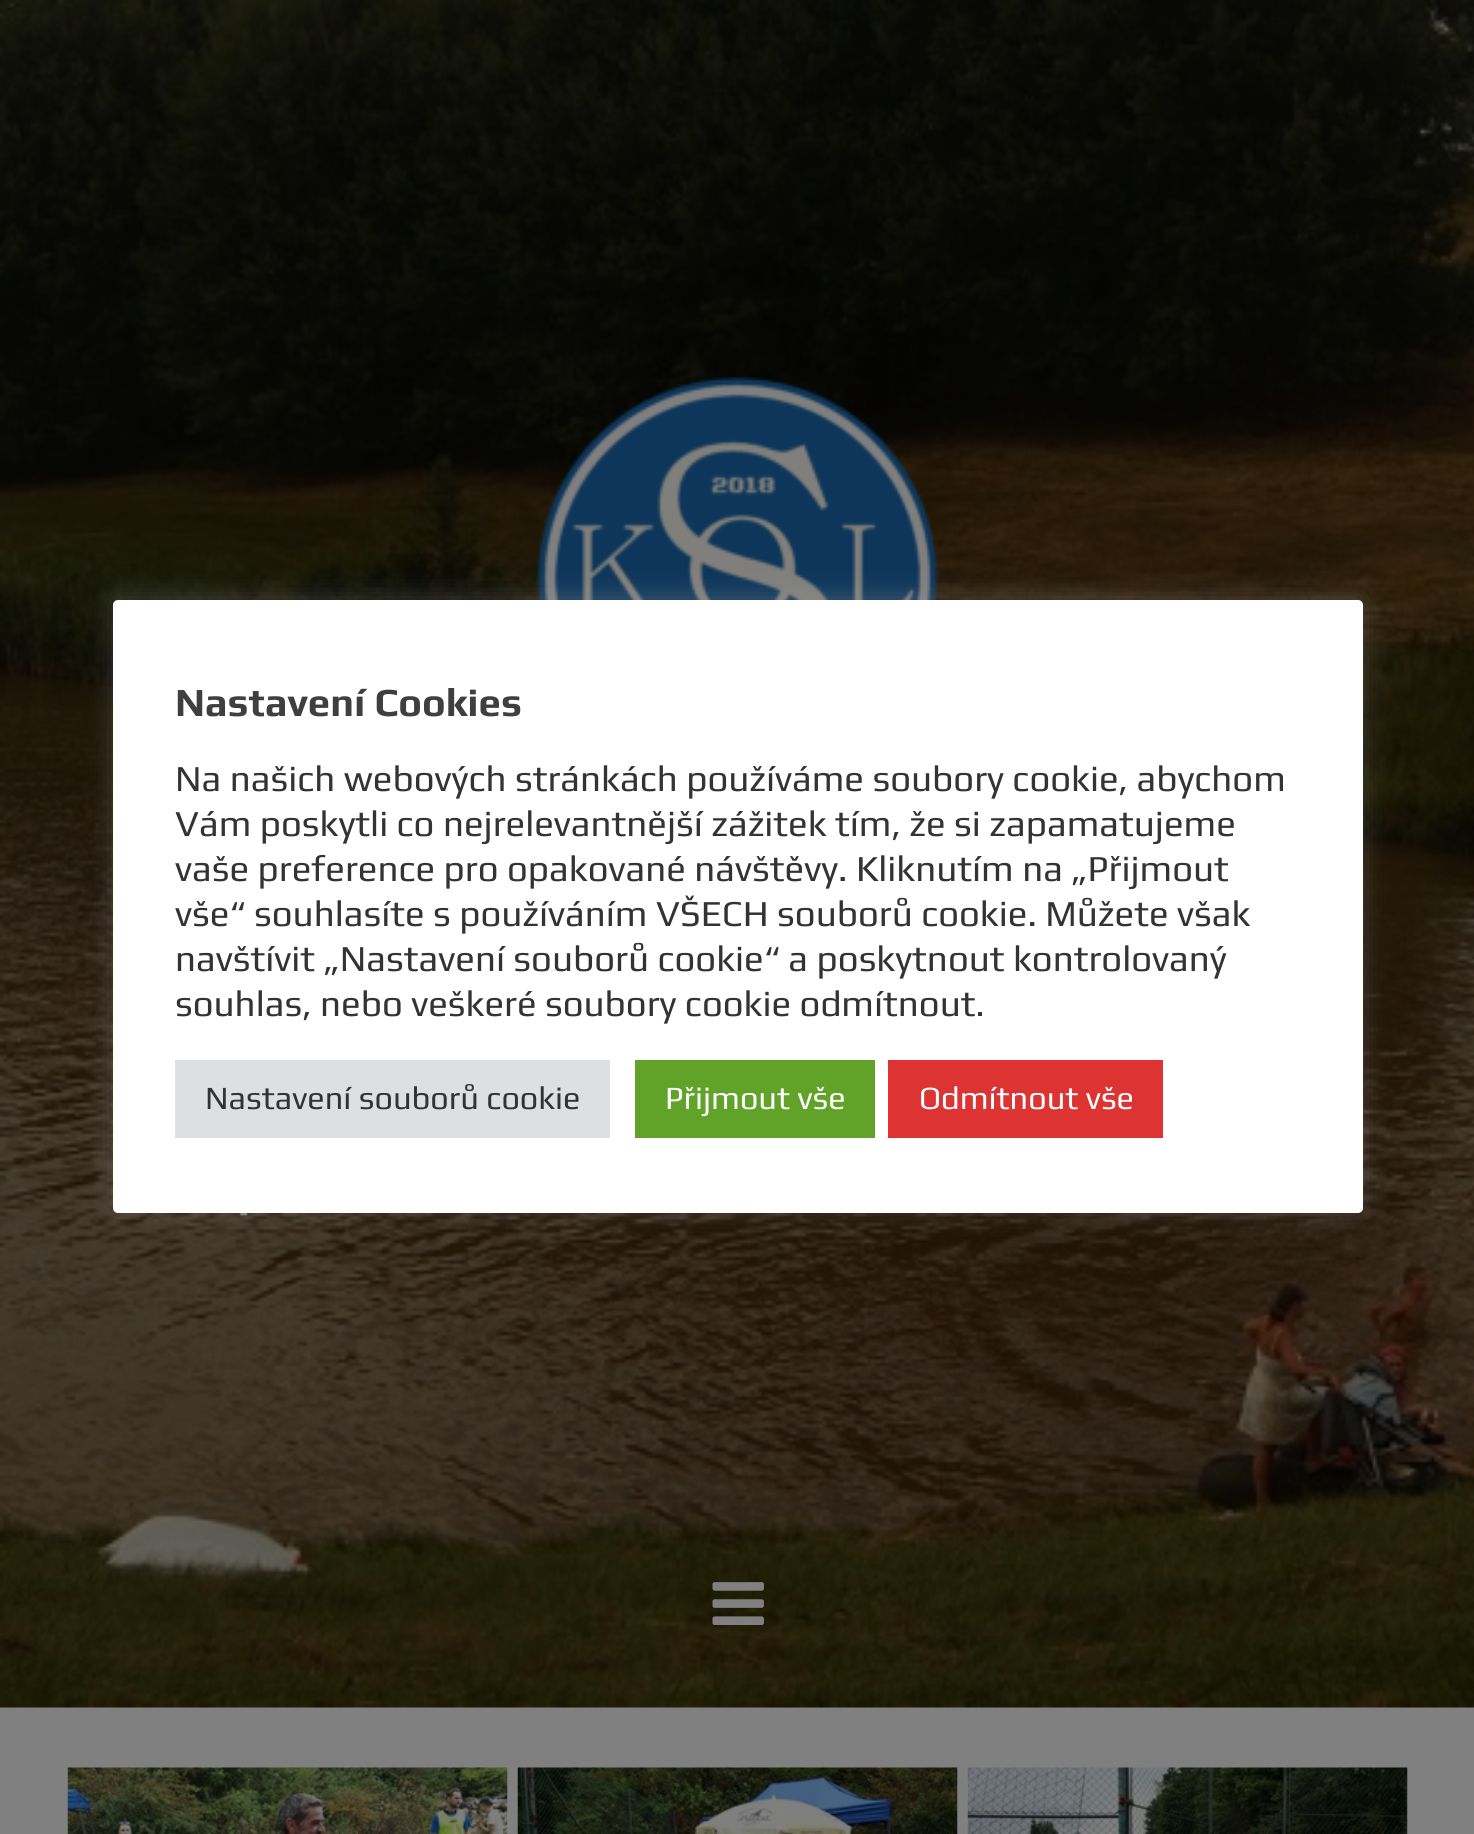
#include <cairo/cairo.h>
#include <math.h>
#include <stddef.h>

typedef struct { double x, y; const char *s; } line_t;
typedef struct { double x, y, w, h; unsigned color; } box_t;
static cairo_t *cr;

static void rgb(unsigned color)
{
	cairo_set_source_rgb(cr, (color >> 16) / 255.0, (color >> 8 & 255) / 255.0, (color & 255) / 255.0);
}

static void rrect(double x, double y, double w, double h, double r)
{
	cairo_new_sub_path(cr);
	cairo_arc(cr, x + w - r, y + h - r, r, 0, M_PI / 2);
	cairo_arc(cr, x + r, y + h - r, r, M_PI / 2, M_PI);
	cairo_arc(cr, x + r, y + r, r, M_PI, 1.5 * M_PI);
	cairo_arc(cr, x + w - r, y + r, r, 1.5 * M_PI, 2 * M_PI);
	cairo_close_path(cr);
}

static void soft_shadow(double x, double y, double w, double h, double r, double blur, double alpha)
{
	cairo_push_group_with_content(cr, CAIRO_CONTENT_ALPHA);
	cairo_set_operator(cr, CAIRO_OPERATOR_SOURCE);
	for (int i = 15; i >= -15 && fmin(w, h) + blur * i / 3 > 0; i -= 2) {
		double e = blur * i / 6;
		cairo_set_source_rgba(cr, 0, 0, 0, alpha * erfc((i - 1) / 8.5) / 2);
		rrect(x - e, y - e, w + 2 * e, h + 2 * e, fmax(0, fmin(r + e + blur * .6, fmin(w, h) / 2 + e)));
		cairo_fill(cr);
	}
	cairo_pattern_t *soft = cairo_pop_group(cr);
	cairo_mask(cr, soft);
	cairo_pattern_destroy(soft);
}

static void image(const char *path, double x, double y, double w, double h)
{
	cairo_surface_t *image = cairo_image_surface_create_from_png(path);
	cairo_save(cr);
	cairo_set_source_surface(cr, image, x, y);
	cairo_rectangle(cr, x, y, w, h);
	cairo_fill(cr);
	cairo_restore(cr);
	cairo_surface_destroy(image);
}

int main(void) {
	cairo_surface_t *surface = cairo_image_surface_create(CAIRO_FORMAT_RGB24, 1474, 1834);
	cr = cairo_create(surface);
	cairo_font_options_t *options = cairo_font_options_create();
	cairo_font_options_set_hint_metrics(options, CAIRO_HINT_METRICS_OFF);
	cairo_font_options_set_hint_style(options, CAIRO_HINT_STYLE_NONE);
	cairo_set_font_options(cr, options);
	cairo_set_miter_limit(cr, 4);
	rgb(0x808080);
	cairo_paint(cr);
	image("img/1.png", 0, 0, 1474, 1708);
	image("img/2.png", 536, 376, 403, 224);
	image("img/3.png", 240, 1213, 8, 3);
	image("img/4.png", 712, 1582, 52, 43);
	image("img/5.png", 67, 1767, 441, 67);
	image("img/6.png", 517, 1767, 441, 67);
	image("img/7.png", 967, 1767, 441, 67);
	rgb(0xacabab);
	soft_shadow(113, 598, 1250, 612, 5, 12.5, 0.3);
	rgb(0xffffff);
	rrect(113, 600, 1250, 613, 5);
	cairo_fill(cr);
	{
		static const box_t items[] = {
			{175, 1060, 435, 78, 0xdedfe0},
			{635, 1060, 240, 78, 0x61a229},
			{888, 1060, 275, 78, 0xdd3333},
		};
		for (size_t i = 0; i < sizeof items / sizeof *items; i++) {
			rgb(items[i].color);
			cairo_rectangle(cr, items[i].x, items[i].y, items[i].w, items[i].h);
			cairo_fill(cr);
		}
	}
	cairo_select_font_face(cr, "Play", CAIRO_FONT_SLANT_NORMAL, CAIRO_FONT_WEIGHT_BOLD);
	cairo_set_font_size(cr, 40);
	rgb(0x3f3f3f);
	cairo_move_to(cr, 175, 716);
	cairo_show_text(cr, "Nastavení Cookies");
	cairo_select_font_face(cr, "Play", CAIRO_FONT_SLANT_NORMAL, CAIRO_FONT_WEIGHT_NORMAL);
	cairo_set_font_size(cr, 36.7);
	rgb(0x333333);
	{
		static const line_t items[] = {
			{175, 791, "Na našich webových stránkách používáme soubory cookie, abychom"},
			{175, 836, "Vám poskytli co nejrelevantnější zážitek tím, že si zapamatujeme"},
			{175, 881, "vaše preference pro opakované návštěvy. Kliknutím na „Přijmout"},
			{175, 926, "vše“ souhlasíte s používáním VŠECH souborů cookie. Můžete však"},
			{175, 971, "navštívit „Nastavení souborů cookie“ a poskytnout kontrolovaný"},
			{175, 1016, "souhlas, nebo veškeré soubory cookie odmítnout."},
		};
		for (size_t i = 0; i < sizeof items / sizeof *items; i++) {
			cairo_move_to(cr, items[i].x, items[i].y);
			cairo_show_text(cr, items[i].s);
		}
	}
	cairo_set_font_size(cr, 32.5);
	cairo_move_to(cr, 205, 1109);
	cairo_show_text(cr, "Nastavení souborů cookie");
	rgb(0xffffff);
	cairo_move_to(cr, 665, 1109);
	cairo_show_text(cr, "Přijmout vše");
	cairo_move_to(cr, 919, 1109);
	cairo_show_text(cr, "Odmítnout vše");
	cairo_surface_write_to_png(surface, "page.png");
	cairo_font_options_destroy(options);
	cairo_destroy(cr);
	cairo_surface_destroy(surface);
	return 0;
}
